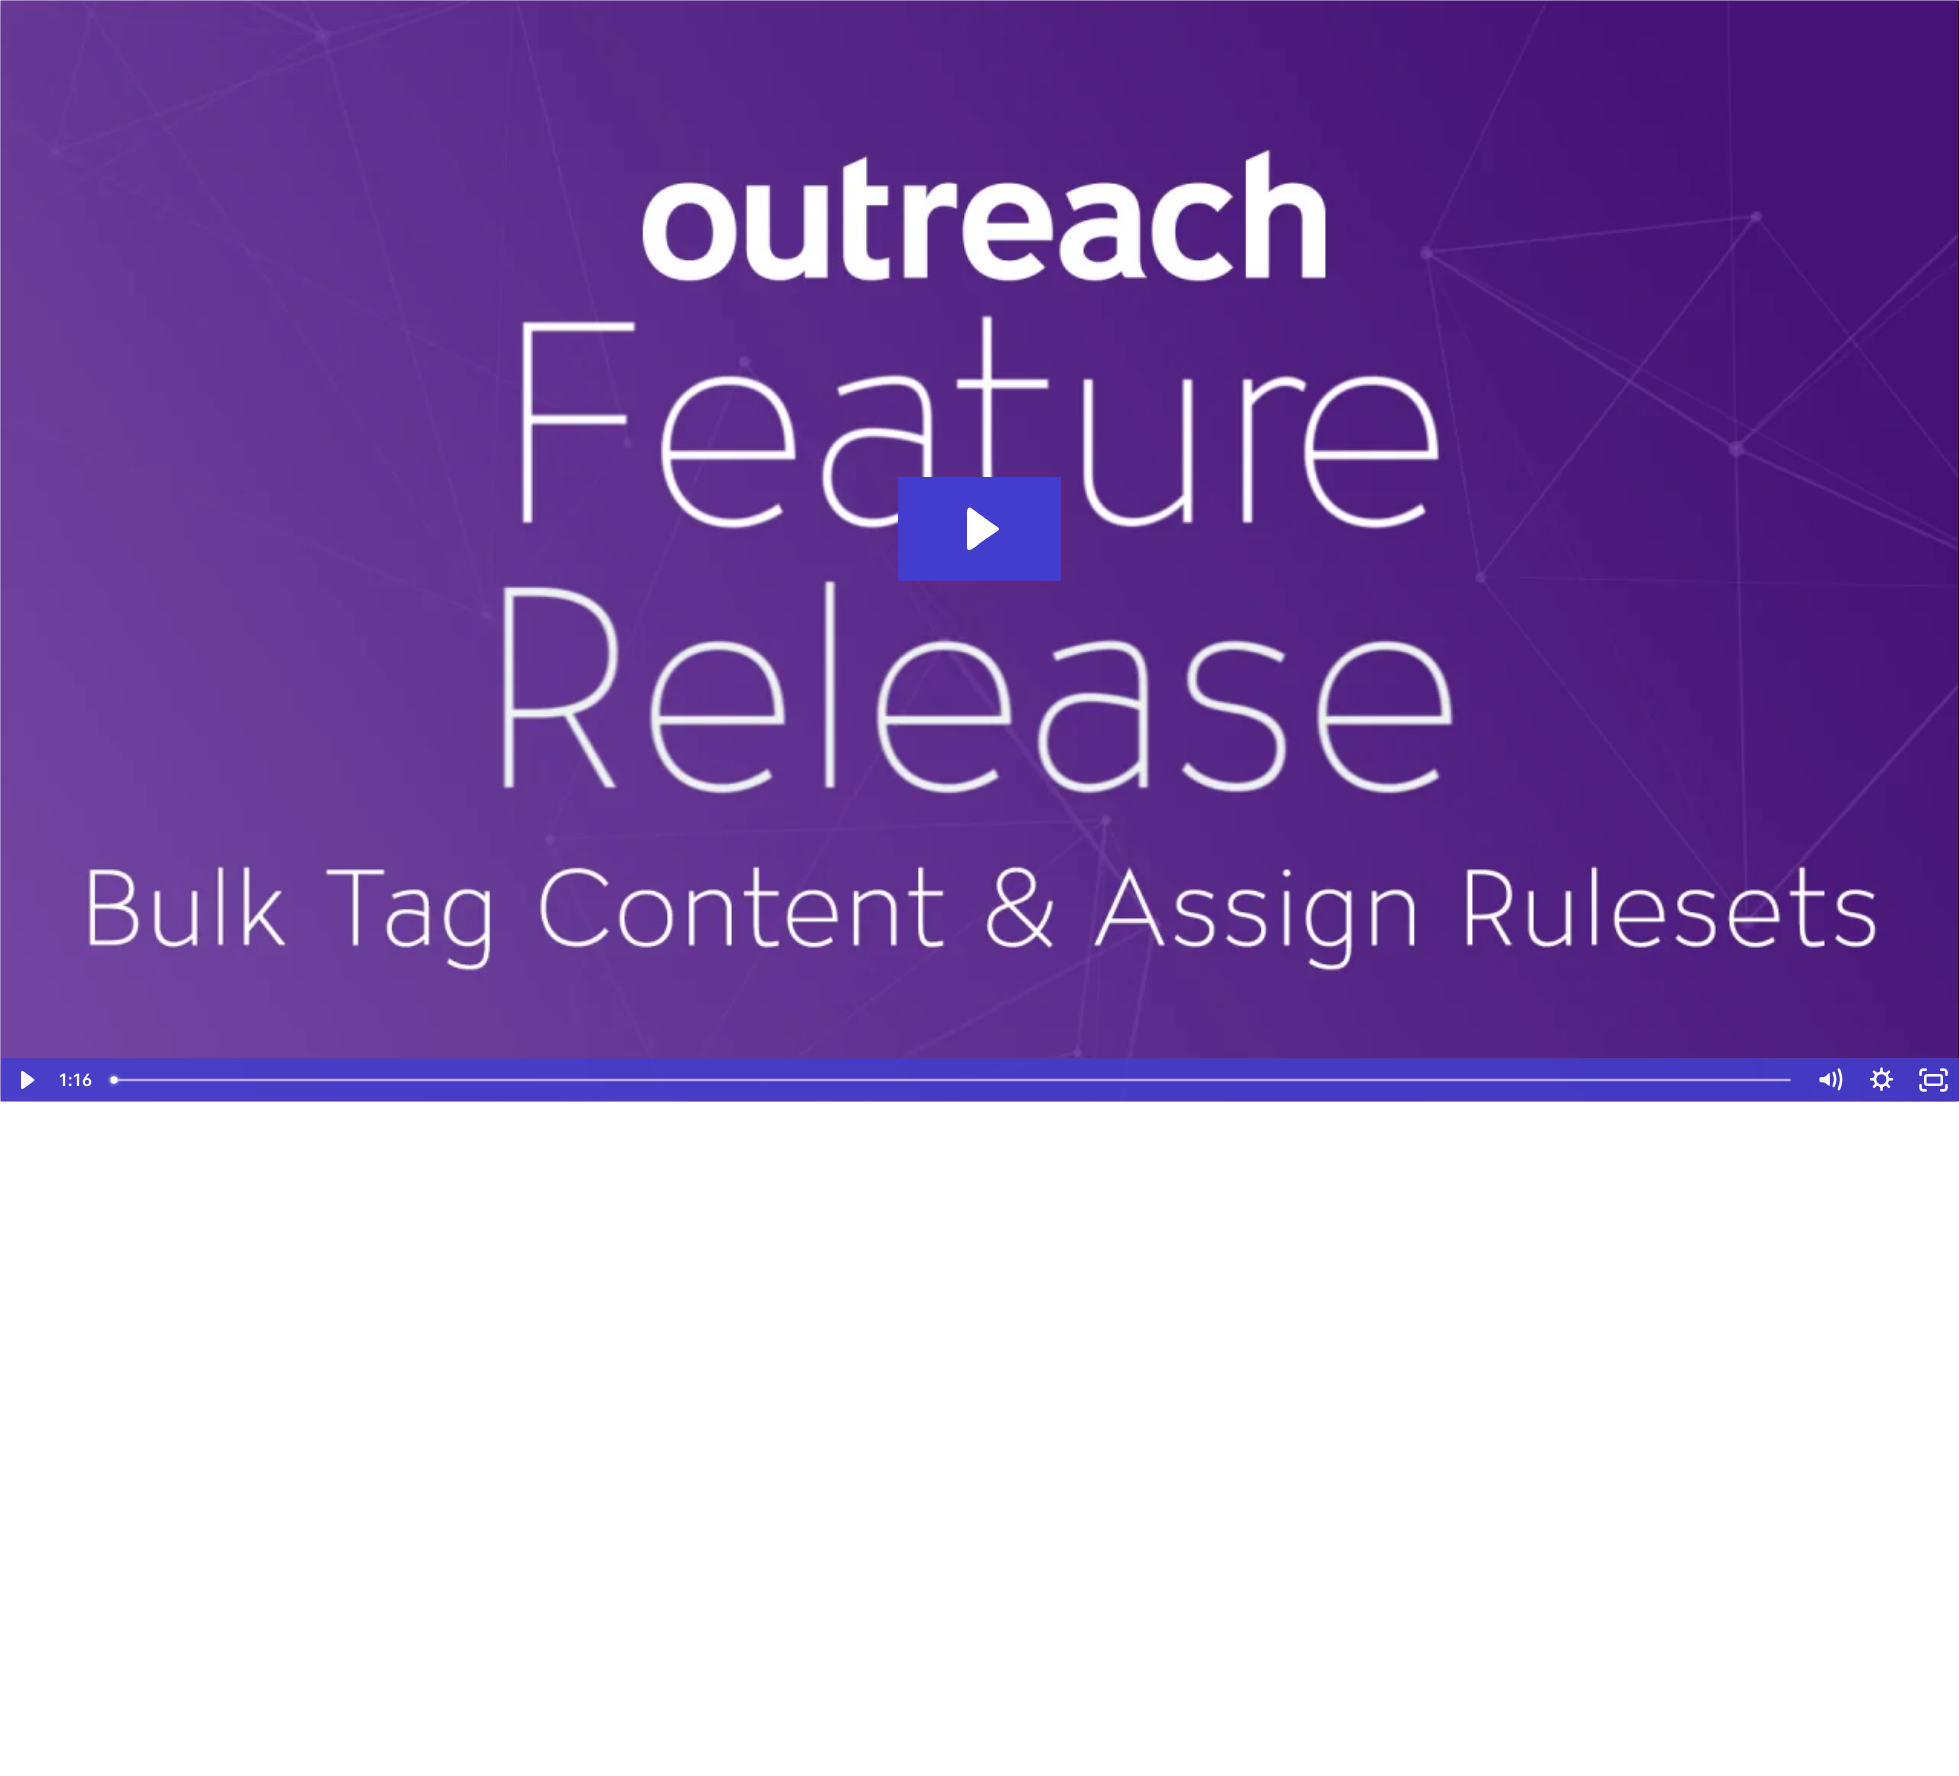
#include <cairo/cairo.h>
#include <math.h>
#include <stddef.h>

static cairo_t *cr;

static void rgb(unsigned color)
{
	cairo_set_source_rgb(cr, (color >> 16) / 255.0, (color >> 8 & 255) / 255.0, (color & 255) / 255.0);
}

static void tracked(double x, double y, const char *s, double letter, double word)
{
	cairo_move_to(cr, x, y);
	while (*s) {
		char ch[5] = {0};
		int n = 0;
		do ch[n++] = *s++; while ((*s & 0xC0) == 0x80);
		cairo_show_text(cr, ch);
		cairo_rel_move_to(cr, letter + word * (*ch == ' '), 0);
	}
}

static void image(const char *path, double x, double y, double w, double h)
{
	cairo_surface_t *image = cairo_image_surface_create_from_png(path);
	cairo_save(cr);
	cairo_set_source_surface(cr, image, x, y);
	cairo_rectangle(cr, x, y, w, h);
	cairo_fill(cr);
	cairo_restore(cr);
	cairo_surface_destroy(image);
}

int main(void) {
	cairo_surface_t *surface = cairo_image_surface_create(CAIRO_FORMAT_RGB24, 1959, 1776);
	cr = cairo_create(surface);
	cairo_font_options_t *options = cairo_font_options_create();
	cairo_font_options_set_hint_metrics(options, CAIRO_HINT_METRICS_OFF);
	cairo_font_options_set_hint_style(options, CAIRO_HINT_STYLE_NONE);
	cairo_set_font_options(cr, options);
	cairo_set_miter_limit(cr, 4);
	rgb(0xffffff);
	cairo_paint(cr);
	image("img/1.png", 0, 0, 1959, 1102);
	rgb(0x000000);
	cairo_rectangle(cr, 1958, 1, 1, 1100);
	cairo_fill(cr);
	image("img/2.png", 0, 0, 1959, 1102);
	rgb(0x423dce);
	cairo_rectangle(cr, 898, 477, 163, 104);
	cairo_fill(cr);
	rgb(0xffffff);
	cairo_set_fill_rule(cr, CAIRO_FILL_RULE_EVEN_ODD);
	cairo_new_path(cr);
	cairo_move_to(cr, 971, 508);
	cairo_curve_to(cr, 966, 505, 967, 516, 967, 517);
	cairo_line_to(cr, 967, 548);
	cairo_line_to(cr, 968, 550);
	cairo_curve_to(cr, 971, 551, 978, 545, 980, 543);
	cairo_line_to(cr, 993, 534);
	cairo_curve_to(cr, 1001, 529, 1001, 529, 993, 524);
	cairo_close_path(cr);
	cairo_fill(cr);
	cairo_set_source_rgba(cr, 0.259, 0.239, 0.808, 0.85);
	cairo_rectangle(cr, 1, 1058, 1958, 43);
	cairo_fill(cr);
	image("img/3.png", 21, 1070, 14, 20);
	image("img/4.png", 107, 1073, 1685, 14);
	image("img/5.png", 1819, 1068, 24, 23);
	image("img/6.png", 1869, 1067, 25, 24);
	image("img/7.png", 1919, 1068, 29, 24);
	cairo_select_font_face(cr, "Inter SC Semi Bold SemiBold", CAIRO_FONT_SLANT_NORMAL, CAIRO_FONT_WEIGHT_NORMAL);
	cairo_set_font_size(cr, 17);
	rgb(0xffffff);
	tracked(59, 1086, "1:16", 0.5, 0);
	cairo_surface_write_to_png(surface, "page.png");
	cairo_font_options_destroy(options);
	cairo_destroy(cr);
	cairo_surface_destroy(surface);
	return 0;
}
